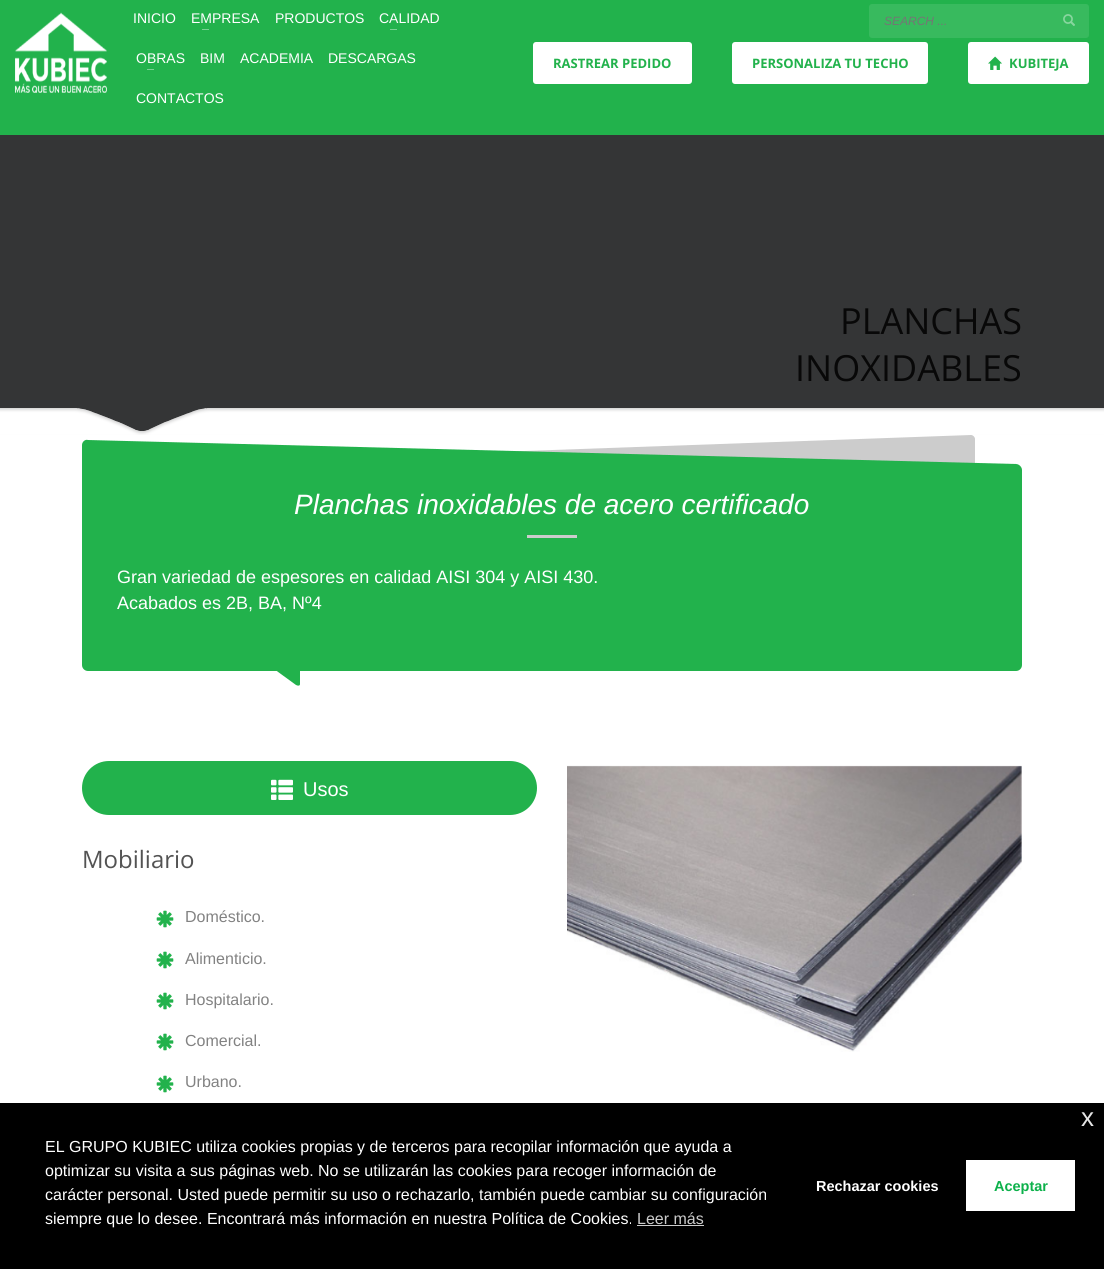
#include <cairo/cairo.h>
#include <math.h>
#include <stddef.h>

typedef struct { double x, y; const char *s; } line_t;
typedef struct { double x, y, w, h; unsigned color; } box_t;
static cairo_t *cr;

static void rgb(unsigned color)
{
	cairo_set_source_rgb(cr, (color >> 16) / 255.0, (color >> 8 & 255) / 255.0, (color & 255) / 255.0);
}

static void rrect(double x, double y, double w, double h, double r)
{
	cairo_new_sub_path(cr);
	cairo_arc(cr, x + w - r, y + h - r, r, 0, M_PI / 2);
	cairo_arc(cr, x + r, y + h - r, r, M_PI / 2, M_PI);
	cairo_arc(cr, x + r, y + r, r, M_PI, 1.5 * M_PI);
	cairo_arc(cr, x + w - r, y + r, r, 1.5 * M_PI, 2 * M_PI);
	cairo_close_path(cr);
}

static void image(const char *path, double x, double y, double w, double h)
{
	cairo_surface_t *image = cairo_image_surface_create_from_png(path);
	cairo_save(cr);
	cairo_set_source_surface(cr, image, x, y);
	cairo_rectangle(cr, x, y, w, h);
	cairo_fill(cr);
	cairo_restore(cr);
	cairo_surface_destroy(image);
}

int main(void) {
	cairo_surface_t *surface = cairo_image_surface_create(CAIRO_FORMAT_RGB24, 1104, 1269);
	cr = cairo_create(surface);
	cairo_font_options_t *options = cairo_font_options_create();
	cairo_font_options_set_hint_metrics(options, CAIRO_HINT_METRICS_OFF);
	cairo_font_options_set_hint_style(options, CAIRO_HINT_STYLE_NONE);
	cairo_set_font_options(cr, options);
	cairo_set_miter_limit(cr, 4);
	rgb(0x343536);
	cairo_paint(cr);
	rgb(0x22b24c);
	cairo_rectangle(cr, 0, 0, 1104, 135);
	cairo_fill(cr);
	image("img/1.png", 15, 12, 92, 81);
	{
		static const box_t items[] = {
			{202, 29, 7, 1, 0x7ad194},
			{390, 29, 7, 1, 0x7ad194},
			{147, 69, 7, 1, 0x7ad194},
		};
		for (size_t i = 0; i < sizeof items / sizeof *items; i++) {
			rgb(items[i].color);
			cairo_rectangle(cr, items[i].x, items[i].y, items[i].w, items[i].h);
			cairo_fill(cr);
		}
	}
	rgb(0xffffff);
	rrect(533, 42, 159, 42, 3);
	cairo_fill(cr);
	rrect(732, 42, 196, 42, 3);
	cairo_fill(cr);
	rrect(968, 42, 121, 42, 3);
	cairo_fill(cr);
	image("img/2.png", 988, 56, 14, 14);
	rgb(0x38ba5e);
	rrect(869, 4, 220, 34, 3);
	cairo_fill(cr);
	image("img/3.png", 1063, 14, 12, 12);
	image("img/4.png", 0, 408, 1104, 27);
	rgb(0xffffff);
	cairo_rectangle(cr, 0, 435, 1104, 668);
	cairo_fill(cr);
	rgb(0x22b24c);
	rrect(82, 470, 940, 201, 6);
	cairo_fill(cr);
	cairo_set_source_rgba(cr, 0, 0, 0, 0.2);
	cairo_new_path(cr);
	cairo_move_to(cr, 133, 465);
	cairo_line_to(cr, 971, 435);
	cairo_curve_to(cr, 973, 435, 975, 437, 975, 439);
	cairo_line_to(cr, 975, 492);
	cairo_curve_to(cr, 975, 494, 973, 496, 971, 496);
	cairo_line_to(cr, 133, 525);
	cairo_curve_to(cr, 131, 525, 129, 523, 129, 521);
	cairo_line_to(cr, 129, 469);
	cairo_curve_to(cr, 129, 467, 131, 465, 133, 465);
	cairo_close_path(cr);
	cairo_fill(cr);
	rgb(0x22b24c);
	cairo_new_path(cr);
	cairo_move_to(cr, 274, 637);
	cairo_line_to(cr, 296, 653);
	cairo_curve_to(cr, 298, 654, 300, 657, 300, 660);
	cairo_line_to(cr, 300, 684);
	cairo_curve_to(cr, 300, 686, 298, 686, 296, 685);
	cairo_line_to(cr, 274, 669);
	cairo_curve_to(cr, 272, 668, 270, 665, 270, 663);
	cairo_line_to(cr, 270, 639);
	cairo_curve_to(cr, 270, 636, 272, 636, 274, 637);
	cairo_close_path(cr);
	cairo_fill(cr);
	cairo_new_path(cr);
	cairo_move_to(cr, 88, 440);
	cairo_line_to(cr, 1016, 464);
	cairo_curve_to(cr, 1019, 464, 1022, 467, 1022, 470);
	cairo_line_to(cr, 1022, 659);
	cairo_curve_to(cr, 1022, 662, 1019, 665, 1016, 665);
	cairo_line_to(cr, 88, 641);
	cairo_curve_to(cr, 85, 641, 82, 638, 82, 634);
	cairo_line_to(cr, 82, 445);
	cairo_curve_to(cr, 82, 442, 85, 439, 88, 440);
	cairo_close_path(cr);
	cairo_fill(cr);
	rgb(0xcccccc);
	cairo_rectangle(cr, 527, 535, 50, 3);
	cairo_fill(cr);
	rgb(0x22b24c);
	rrect(82, 761, 455, 54, 27);
	cairo_fill(cr);
	image("img/5.png", 271, 779, 22, 21);
	image("img/6.png", 156, 910, 18, 18);
	image("img/6.png", 156, 951, 18, 18);
	image("img/6.png", 156, 992, 18, 18);
	image("img/6.png", 156, 1033, 18, 18);
	image("img/6.png", 156, 1075, 18, 18);
	image("img/7.png", 567, 765, 455, 287);
	{
		static const box_t items[] = {
			{0, 1103, 1104, 166, 0x000000},
			{637, 1225, 67, 1, 0xcccccc},
			{966, 1160, 109, 51, 0xffffff},
		};
		for (size_t i = 0; i < sizeof items / sizeof *items; i++) {
			rgb(items[i].color);
			cairo_rectangle(cr, items[i].x, items[i].y, items[i].w, items[i].h);
			cairo_fill(cr);
		}
	}
	cairo_select_font_face(cr, "Liberation Sans", CAIRO_FONT_SLANT_NORMAL, CAIRO_FONT_WEIGHT_NORMAL);
	cairo_set_font_size(cr, 14);
	{
		static const line_t items[] = {
			{133, 23, "INICIO"},
			{191, 23, "EMPRESA"},
			{275, 23, "PRODUCTOS"},
			{379, 23, "CALIDAD"},
			{136, 63, "OBRAS"},
			{200, 63, "BIM"},
			{240, 63, "ACADEMIA"},
			{328, 63, "DESCARGAS"},
			{136, 103, "CONTACTOS"},
		};
		for (size_t i = 0; i < sizeof items / sizeof *items; i++) {
			cairo_move_to(cr, items[i].x, items[i].y);
			cairo_show_text(cr, items[i].s);
		}
	}
	cairo_select_font_face(cr, "Open Sans", CAIRO_FONT_SLANT_NORMAL, CAIRO_FONT_WEIGHT_BOLD);
	cairo_set_font_size(cr, 13);
	rgb(0x22b24c);
	{
		static const line_t items[] = {
			{553, 68, "RASTREAR PEDIDO"},
			{752, 68, "PERSONALIZA TU TECHO"},
			{1009, 68, "KUBITEJA"},
		};
		for (size_t i = 0; i < sizeof items / sizeof *items; i++) {
			cairo_move_to(cr, items[i].x, items[i].y);
			cairo_show_text(cr, items[i].s);
		}
	}
	cairo_select_font_face(cr, "Liberation Sans", CAIRO_FONT_SLANT_ITALIC, CAIRO_FONT_WEIGHT_NORMAL);
	cairo_set_font_size(cr, 12);
	rgb(0x757575);
	cairo_move_to(cr, 884, 25);
	cairo_show_text(cr, "SEARCH ...");
	cairo_select_font_face(cr, "Open Sans", CAIRO_FONT_SLANT_NORMAL, CAIRO_FONT_WEIGHT_NORMAL);
	cairo_set_font_size(cr, 36);
	rgb(0x080808);
	cairo_move_to(cr, 840, 334);
	cairo_show_text(cr, "PLANCHAS");
	cairo_move_to(cr, 795, 381);
	cairo_show_text(cr, "INOXIDABLES");
	cairo_select_font_face(cr, "Liberation Sans", CAIRO_FONT_SLANT_ITALIC, CAIRO_FONT_WEIGHT_NORMAL);
	cairo_set_font_size(cr, 28);
	rgb(0xffffff);
	cairo_move_to(cr, 294, 514);
	cairo_show_text(cr, "Planchas inoxidables de acero certificado");
	cairo_select_font_face(cr, "Liberation Sans", CAIRO_FONT_SLANT_NORMAL, CAIRO_FONT_WEIGHT_NORMAL);
	cairo_set_font_size(cr, 18);
	cairo_move_to(cr, 117, 583);
	cairo_show_text(cr, "Gran variedad de espesores en calidad AISI 304 y AISI 430.");
	cairo_move_to(cr, 117, 609);
	cairo_show_text(cr, "Acabados es 2B, BA, Nº4");
	cairo_set_font_size(cr, 20);
	cairo_move_to(cr, 303, 796);
	cairo_show_text(cr, "Usos");
	cairo_select_font_face(cr, "Open Sans", CAIRO_FONT_SLANT_NORMAL, CAIRO_FONT_WEIGHT_NORMAL);
	cairo_set_font_size(cr, 24);
	rgb(0x535353);
	cairo_move_to(cr, 82, 868);
	cairo_show_text(cr, "Mobiliario");
	cairo_select_font_face(cr, "Liberation Sans", CAIRO_FONT_SLANT_NORMAL, CAIRO_FONT_WEIGHT_NORMAL);
	cairo_set_font_size(cr, 16);
	rgb(0x828282);
	{
		static const line_t items[] = {
			{185, 922, "Doméstico."},
			{185, 964, "Alimenticio."},
			{185, 1005, "Hospitalario."},
			{185, 1046, "Comercial."},
			{185, 1087, "Urbano."},
		};
		for (size_t i = 0; i < sizeof items / sizeof *items; i++) {
			cairo_move_to(cr, items[i].x, items[i].y);
			cairo_show_text(cr, items[i].s);
		}
	}
	cairo_set_font_size(cr, 26);
	rgb(0xe6e6e6);
	cairo_move_to(cr, 1081, 1126);
	cairo_show_text(cr, "x");
	cairo_set_font_size(cr, 16);
	rgb(0xffffff);
	{
		static const line_t items[] = {
			{45, 1152, "EL GRUPO KUBIEC utiliza cookies propias y de terceros para recopilar información que ayuda a"},
			{45, 1176, "optimizar su visita a sus páginas web. No se utilizarán las cookies para recoger información de"},
			{45, 1200, "carácter personal. Usted puede permitir su uso o rechazarlo, también puede cambiar su configuración"},
			{45, 1224, "siempre que lo desee. Encontrará más información en nuestra Política de Cookies."},
		};
		for (size_t i = 0; i < sizeof items / sizeof *items; i++) {
			cairo_move_to(cr, items[i].x, items[i].y);
			cairo_show_text(cr, items[i].s);
		}
	}
	rgb(0xcccccc);
	cairo_move_to(cr, 637, 1224);
	cairo_show_text(cr, "Leer más");
	cairo_select_font_face(cr, "Liberation Sans", CAIRO_FONT_SLANT_NORMAL, CAIRO_FONT_WEIGHT_BOLD);
	cairo_set_font_size(cr, 14.5);
	rgb(0xffffff);
	cairo_move_to(cr, 816, 1191);
	cairo_show_text(cr, "Rechazar cookies");
	rgb(0x0db14b);
	cairo_move_to(cr, 994, 1191);
	cairo_show_text(cr, "Aceptar");
	cairo_surface_write_to_png(surface, "page.png");
	cairo_font_options_destroy(options);
	cairo_destroy(cr);
	cairo_surface_destroy(surface);
	return 0;
}
